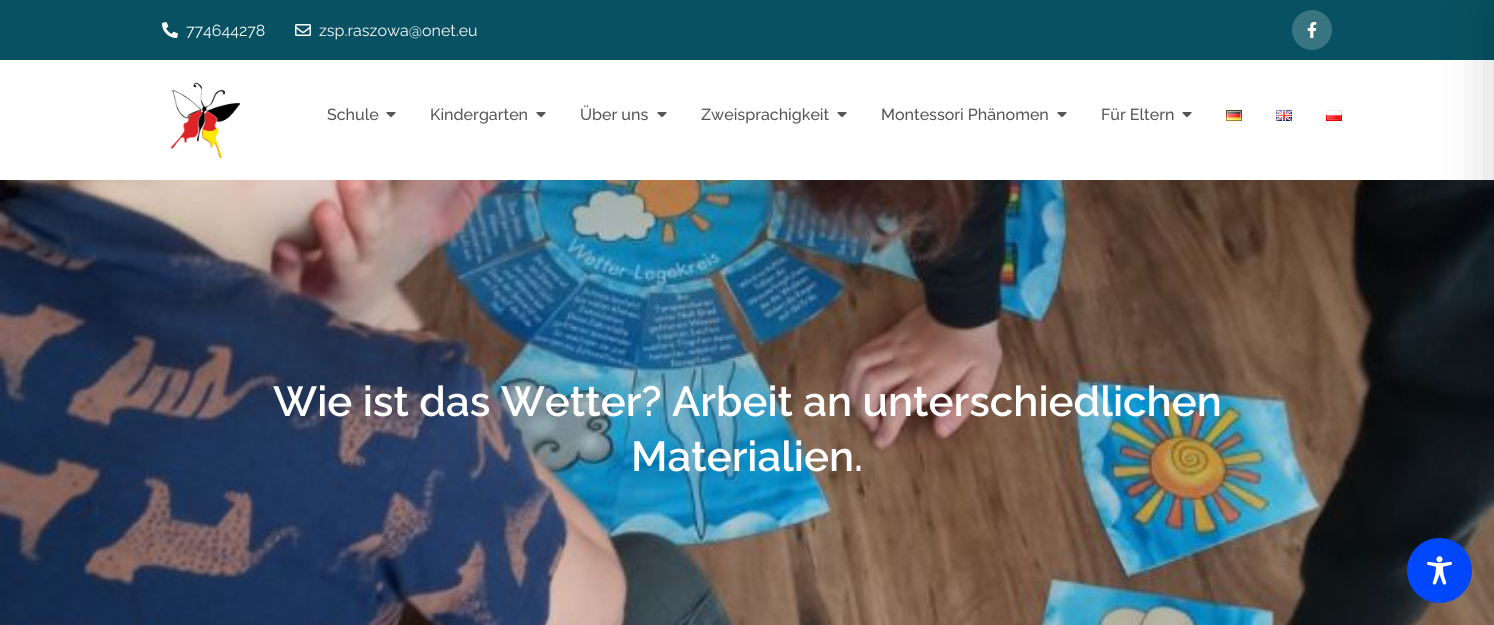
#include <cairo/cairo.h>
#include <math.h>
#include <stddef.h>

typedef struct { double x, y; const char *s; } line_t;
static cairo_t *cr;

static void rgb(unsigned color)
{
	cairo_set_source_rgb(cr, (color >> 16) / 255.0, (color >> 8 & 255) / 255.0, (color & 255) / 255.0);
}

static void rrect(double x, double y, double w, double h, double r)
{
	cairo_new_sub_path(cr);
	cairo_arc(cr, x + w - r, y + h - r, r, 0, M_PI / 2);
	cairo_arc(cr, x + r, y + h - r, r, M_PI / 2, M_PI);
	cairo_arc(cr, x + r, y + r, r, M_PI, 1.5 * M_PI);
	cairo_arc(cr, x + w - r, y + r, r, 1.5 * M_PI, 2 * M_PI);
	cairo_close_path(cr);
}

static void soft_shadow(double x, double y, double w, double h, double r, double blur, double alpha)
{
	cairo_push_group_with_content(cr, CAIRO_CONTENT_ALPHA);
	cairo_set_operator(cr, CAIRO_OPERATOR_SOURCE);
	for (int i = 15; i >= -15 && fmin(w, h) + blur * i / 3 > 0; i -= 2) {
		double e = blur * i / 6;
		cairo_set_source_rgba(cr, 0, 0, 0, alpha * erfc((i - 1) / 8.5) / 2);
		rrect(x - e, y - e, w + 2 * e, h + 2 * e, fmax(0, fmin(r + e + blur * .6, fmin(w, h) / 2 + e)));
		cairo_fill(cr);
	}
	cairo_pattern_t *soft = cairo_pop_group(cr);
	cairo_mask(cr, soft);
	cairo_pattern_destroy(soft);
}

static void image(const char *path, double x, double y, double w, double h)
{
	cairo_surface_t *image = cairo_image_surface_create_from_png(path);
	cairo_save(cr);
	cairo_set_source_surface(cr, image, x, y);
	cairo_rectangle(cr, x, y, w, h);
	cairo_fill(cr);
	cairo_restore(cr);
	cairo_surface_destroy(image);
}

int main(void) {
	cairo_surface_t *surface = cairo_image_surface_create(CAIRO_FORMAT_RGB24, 1494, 625);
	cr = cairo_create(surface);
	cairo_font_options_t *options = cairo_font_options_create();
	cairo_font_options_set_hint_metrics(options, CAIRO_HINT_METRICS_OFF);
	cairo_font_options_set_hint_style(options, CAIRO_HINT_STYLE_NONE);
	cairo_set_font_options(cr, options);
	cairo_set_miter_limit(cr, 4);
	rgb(0xffffff);
	cairo_paint(cr);
	rgb(0x085162);
	cairo_rectangle(cr, 0, 0, 1494, 60);
	cairo_fill(cr);
	image("img/1.png", 162, 22, 16, 16);
	image("img/2.png", 295, 24, 16, 12);
	rgb(0x397481);
	cairo_arc(cr, 1312, 30, 20, 0, 2 * M_PI);
	cairo_fill(cr);
	image("img/3.png", 1307, 22, 10, 16);
	image("img/9.png", 0, 180, 1494, 445);
	rgb(0x0048fe);
	cairo_arc(cr, 1439.5, 570.5, 32.5, 0, 2 * M_PI);
	cairo_fill(cr);
	image("img/10.png", 1427, 556, 25, 29);
	rgb(0x000000);
	soft_shadow(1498, 10, 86, 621, 0, 30, 0.2);
	image("img/4.png", 170, 82, 71, 76);
	image("img/5.png", 386, 112, 10, 6);
	image("img/5.png", 536, 112, 10, 6);
	image("img/5.png", 657, 112, 10, 6);
	image("img/5.png", 837, 112, 10, 6);
	image("img/5.png", 1057, 112, 10, 6);
	image("img/5.png", 1182, 112, 10, 6);
	image("img/6.png", 1226, 110, 16, 11);
	image("img/7.png", 1276, 110, 16, 11);
	image("img/8.png", 1326, 110, 16, 11);
	cairo_select_font_face(cr, "Raleway", CAIRO_FONT_SLANT_NORMAL, CAIRO_FONT_WEIGHT_NORMAL);
	cairo_set_font_size(cr, 16);
	rgb(0xffffff);
	cairo_move_to(cr, 186, 36);
	cairo_show_text(cr, "774644278");
	cairo_move_to(cr, 319, 36);
	cairo_show_text(cr, "zsp.raszowa@onet.eu");
	cairo_select_font_face(cr, "Raleway Medium", CAIRO_FONT_SLANT_NORMAL, CAIRO_FONT_WEIGHT_NORMAL);
	rgb(0x555555);
	{
		static const line_t items[] = {
			{327, 120, "Schule"},
			{430, 120, "Kindergarten"},
			{580, 120, "Über uns"},
			{701, 120, "Zweisprachigkeit"},
			{881, 120, "Montessori Phänomen"},
			{1101, 120, "Für Eltern"},
		};
		for (size_t i = 0; i < sizeof items / sizeof *items; i++) {
			cairo_move_to(cr, items[i].x, items[i].y);
			cairo_show_text(cr, items[i].s);
		}
	}
	cairo_select_font_face(cr, "Raleway SemiBold", CAIRO_FONT_SLANT_NORMAL, CAIRO_FONT_WEIGHT_NORMAL);
	cairo_set_font_size(cr, 42);
	rgb(0xffffff);
	cairo_move_to(cr, 273, 416);
	cairo_show_text(cr, "Wie ist das Wetter? Arbeit an unterschiedlichen");
	cairo_move_to(cr, 631, 471);
	cairo_show_text(cr, "Materialien.");
	cairo_surface_write_to_png(surface, "page.png");
	cairo_font_options_destroy(options);
	cairo_destroy(cr);
	cairo_surface_destroy(surface);
	return 0;
}
